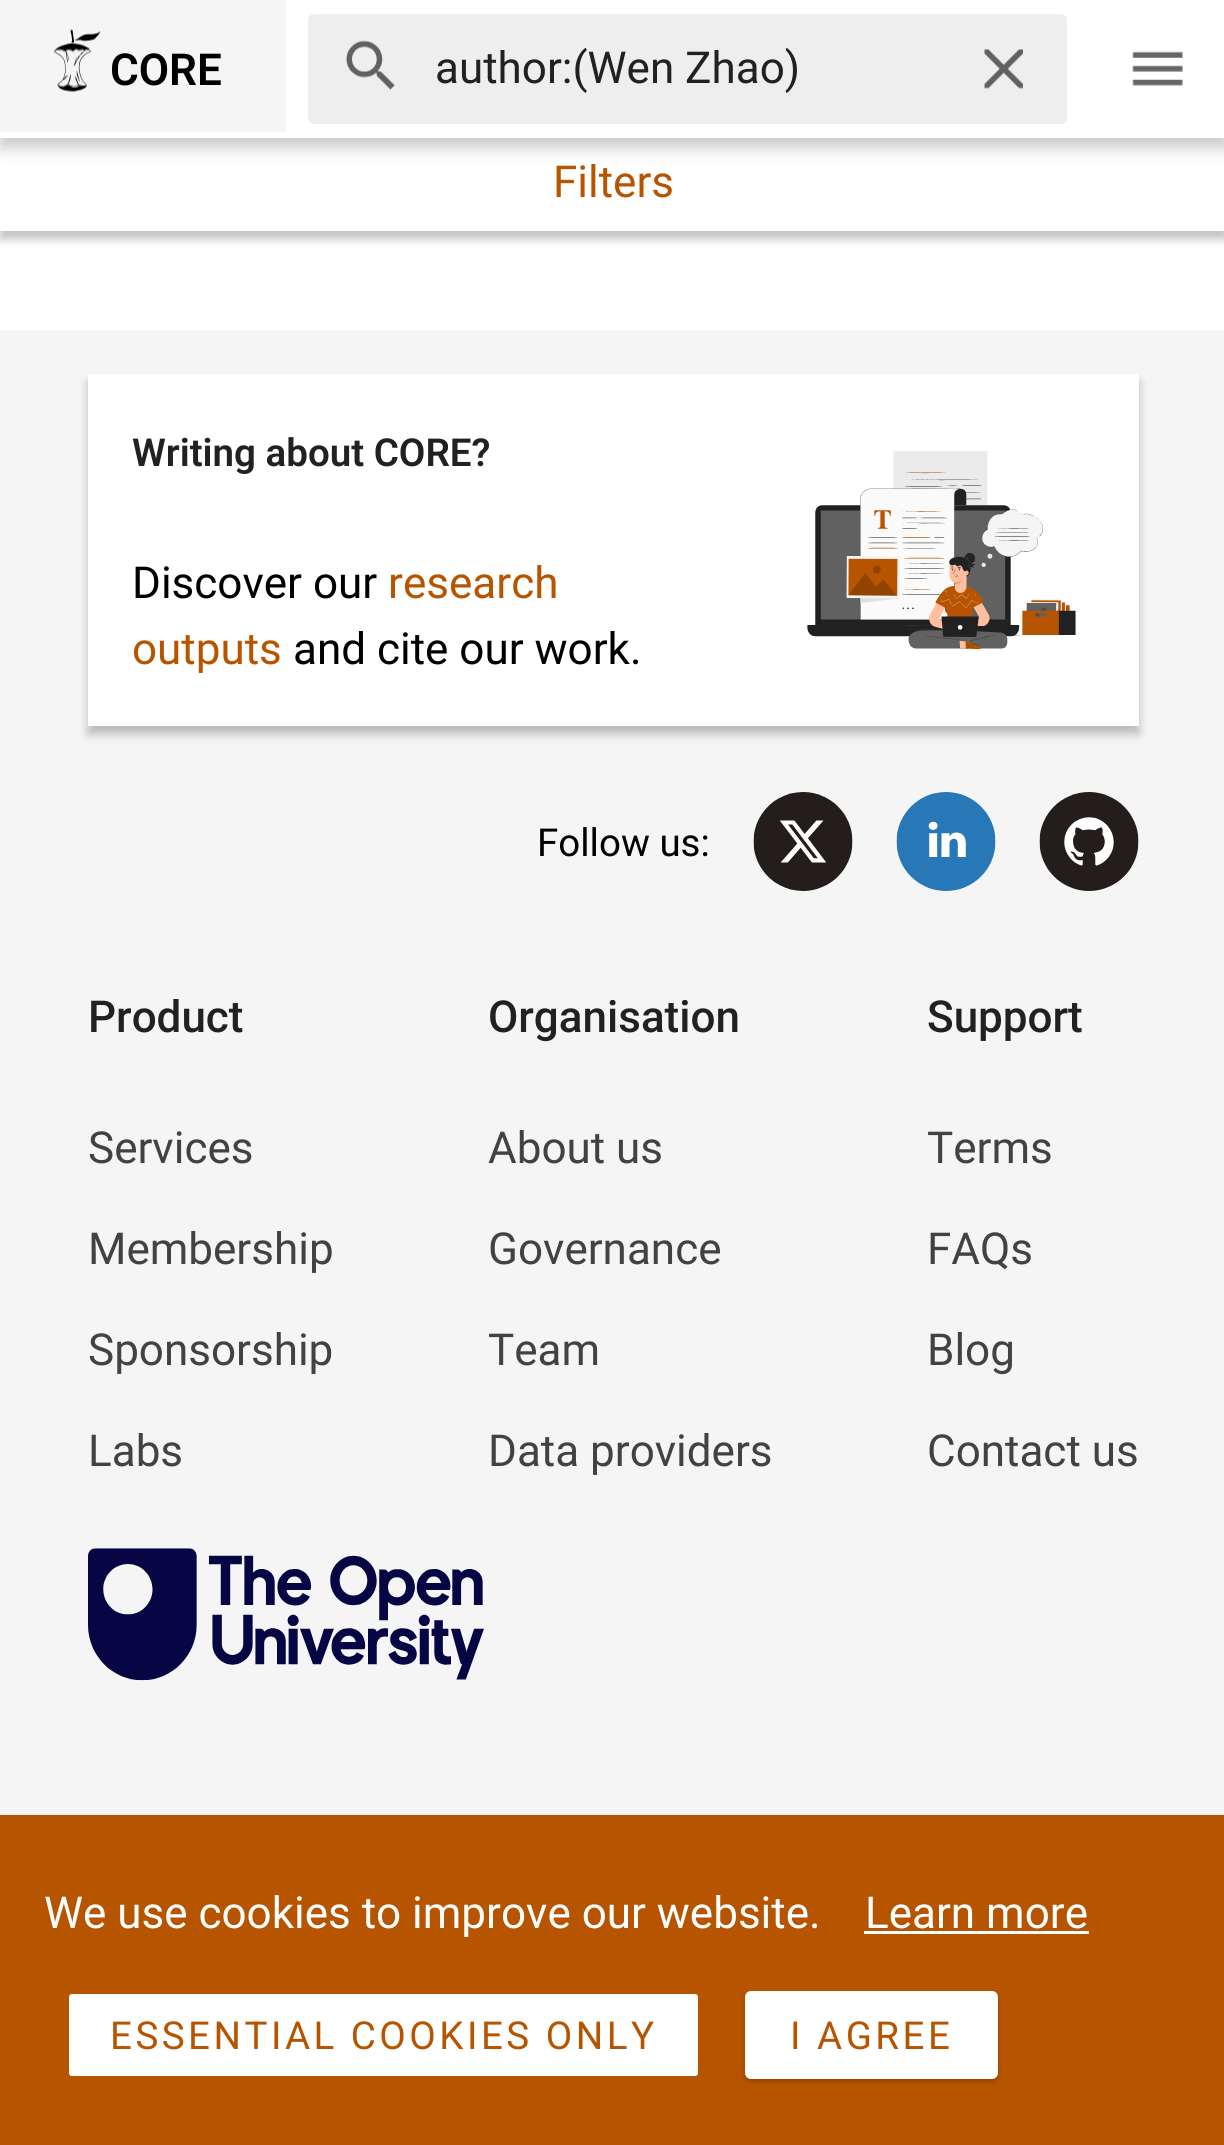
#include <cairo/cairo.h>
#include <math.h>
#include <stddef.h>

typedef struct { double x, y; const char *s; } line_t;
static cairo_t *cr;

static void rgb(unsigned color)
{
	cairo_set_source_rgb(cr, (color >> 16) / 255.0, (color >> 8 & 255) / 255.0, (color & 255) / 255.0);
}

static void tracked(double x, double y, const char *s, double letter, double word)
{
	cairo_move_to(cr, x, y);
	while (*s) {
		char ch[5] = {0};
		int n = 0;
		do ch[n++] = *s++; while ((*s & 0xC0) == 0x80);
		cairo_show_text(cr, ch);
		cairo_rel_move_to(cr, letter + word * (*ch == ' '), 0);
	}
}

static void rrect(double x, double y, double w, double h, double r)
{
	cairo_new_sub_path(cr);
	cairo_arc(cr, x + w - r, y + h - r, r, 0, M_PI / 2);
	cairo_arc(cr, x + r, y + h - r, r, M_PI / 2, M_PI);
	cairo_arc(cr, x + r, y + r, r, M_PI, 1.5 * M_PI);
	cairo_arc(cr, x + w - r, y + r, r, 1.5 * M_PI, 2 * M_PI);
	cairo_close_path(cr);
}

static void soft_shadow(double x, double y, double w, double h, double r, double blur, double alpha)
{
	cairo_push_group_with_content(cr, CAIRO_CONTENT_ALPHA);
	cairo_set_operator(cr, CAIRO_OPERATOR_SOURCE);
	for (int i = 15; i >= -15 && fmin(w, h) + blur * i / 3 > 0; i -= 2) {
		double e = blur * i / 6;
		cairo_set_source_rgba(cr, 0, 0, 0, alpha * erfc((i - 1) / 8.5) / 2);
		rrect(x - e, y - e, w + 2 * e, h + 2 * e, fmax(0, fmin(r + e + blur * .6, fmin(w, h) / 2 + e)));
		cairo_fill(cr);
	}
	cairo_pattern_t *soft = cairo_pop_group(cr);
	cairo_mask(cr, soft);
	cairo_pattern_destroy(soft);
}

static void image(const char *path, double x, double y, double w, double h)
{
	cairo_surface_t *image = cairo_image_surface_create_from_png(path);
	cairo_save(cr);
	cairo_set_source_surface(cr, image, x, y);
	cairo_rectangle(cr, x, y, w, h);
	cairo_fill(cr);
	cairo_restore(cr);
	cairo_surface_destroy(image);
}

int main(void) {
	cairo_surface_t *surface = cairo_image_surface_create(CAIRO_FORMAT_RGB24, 1224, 2145);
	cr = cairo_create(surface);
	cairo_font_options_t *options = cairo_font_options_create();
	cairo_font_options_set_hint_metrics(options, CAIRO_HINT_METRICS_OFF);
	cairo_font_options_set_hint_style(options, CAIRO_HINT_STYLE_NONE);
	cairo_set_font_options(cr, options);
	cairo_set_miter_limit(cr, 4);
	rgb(0xffffff);
	cairo_paint(cr);
	rgb(0x000000);
	soft_shadow(0, 146, 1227, 93, 0, 5.5, 0.14);
	soft_shadow(0, 146, 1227, 93, 0, 4, 0.12);
	rgb(0xffffff);
	cairo_rectangle(cr, 0, 138, 1224, 93);
	cairo_fill(cr);
	rgb(0x000000);
	soft_shadow(0, 11, 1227, 138, 0, 7, 0.14);
	soft_shadow(0, 3, 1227, 137, 0, 14, 0.12);
	rgb(0xffffff);
	cairo_rectangle(cr, 0, 0, 1224, 138);
	cairo_fill(cr);
	rgb(0xf5f5f5);
	cairo_rectangle(cr, 0, 0, 286, 132);
	cairo_fill(cr);
	image("img/1.png", 54, 29, 46, 63);
	rgb(0xeeeeee);
	cairo_new_path(cr);
	cairo_move_to(cr, 314, 14);
	cairo_line_to(cr, 435, 14);
	cairo_line_to(cr, 435, 124);
	cairo_line_to(cr, 314, 124);
	cairo_curve_to(cr, 310.5, 124, 308, 121.5, 308, 118);
	cairo_line_to(cr, 308, 20);
	cairo_curve_to(cr, 308, 16.5, 310.5, 14, 314, 14);
	cairo_close_path(cr);
	cairo_fill(cr);
	image("img/2.png", 346, 40, 49, 50);
	cairo_rectangle(cr, 435, 14, 506, 110);
	cairo_fill(cr);
	cairo_new_path(cr);
	cairo_move_to(cr, 941, 14);
	cairo_line_to(cr, 1061, 14);
	cairo_curve_to(cr, 1064.5, 14, 1067, 16.5, 1067, 20);
	cairo_line_to(cr, 1067, 118);
	cairo_curve_to(cr, 1067, 121.5, 1064.5, 124, 1061, 124);
	cairo_line_to(cr, 941, 124);
	cairo_close_path(cr);
	cairo_fill(cr);
	image("img/3.png", 984, 49, 39, 40);
	image("img/4.png", 1132, 51, 51, 35);
	rgb(0xf5f5f5);
	cairo_rectangle(cr, 0, 330, 1224, 1485);
	cairo_fill(cr);
	rgb(0x000000);
	soft_shadow(88, 382, 1051, 352, 0, 5.5, 0.14);
	soft_shadow(88, 382, 1051, 352, 0, 4, 0.12);
	rgb(0xffffff);
	cairo_rectangle(cr, 88, 374, 1051, 352);
	cairo_fill(cr);
	image("img/5.png", 807, 451, 269, 198);
	image("img/6.png", 753, 792, 100, 99);
	image("img/7.png", 896, 792, 100, 99);
	image("img/8.png", 1039, 792, 100, 99);
	image("img/9.png", 88, 1548, 396, 133);
	rgb(0xb75400);
	cairo_rectangle(cr, 0, 1815, 1224, 330);
	cairo_fill(cr);
	rgb(0xffffff);
	cairo_rectangle(cr, 864, 1931, 225, 3);
	cairo_fill(cr);
	rrect(67.5, 1992.5, 632, 85, 4.5);
	cairo_fill_preserve(cr);
	rgb(0xb75400);
	cairo_set_line_width(cr, 3);
	cairo_stroke(cr);
	rgb(0x000000);
	soft_shadow(745, 1994, 253, 88, 6, 3, 0.2);
	rgb(0xffffff);
	rrect(745, 1991, 253, 88, 6);
	cairo_fill(cr);
	cairo_select_font_face(cr, "Roboto SemiBold", CAIRO_FONT_SLANT_NORMAL, CAIRO_FONT_WEIGHT_NORMAL);
	cairo_set_font_size(cr, 44);
	rgb(0x000000);
	cairo_move_to(cr, 110, 85);
	cairo_show_text(cr, "CORE");
	cairo_select_font_face(cr, "Roboto", CAIRO_FONT_SLANT_NORMAL, CAIRO_FONT_WEIGHT_NORMAL);
	rgb(0x212121);
	cairo_move_to(cr, 435, 83);
	cairo_show_text(cr, "author:(Wen Zhao)");
	rgb(0xb75400);
	cairo_move_to(cr, 553, 197);
	cairo_show_text(cr, "Filters");
	cairo_select_font_face(cr, "Roboto SemiBold", CAIRO_FONT_SLANT_NORMAL, CAIRO_FONT_WEIGHT_NORMAL);
	cairo_set_font_size(cr, 38.5);
	rgb(0x212121);
	cairo_move_to(cr, 132, 466);
	cairo_show_text(cr, "Writing about CORE?");
	cairo_select_font_face(cr, "Roboto", CAIRO_FONT_SLANT_NORMAL, CAIRO_FONT_WEIGHT_NORMAL);
	cairo_set_font_size(cr, 44);
	rgb(0x000000);
	cairo_move_to(cr, 132, 598);
	cairo_show_text(cr, "Discover our");
	rgb(0xb75400);
	cairo_move_to(cr, 388, 598);
	cairo_show_text(cr, "research");
	cairo_move_to(cr, 132, 664);
	cairo_show_text(cr, "outputs");
	rgb(0x000000);
	cairo_move_to(cr, 293, 664);
	cairo_show_text(cr, "and cite our work.");
	cairo_set_font_size(cr, 38.5);
	cairo_move_to(cr, 537, 856);
	cairo_show_text(cr, "Follow us:");
	cairo_select_font_face(cr, "Roboto Medium", CAIRO_FONT_SLANT_NORMAL, CAIRO_FONT_WEIGHT_NORMAL);
	cairo_set_font_size(cr, 44);
	rgb(0x212121);
	cairo_move_to(cr, 88, 1032);
	cairo_show_text(cr, "Product");
	cairo_select_font_face(cr, "Roboto", CAIRO_FONT_SLANT_NORMAL, CAIRO_FONT_WEIGHT_NORMAL);
	rgb(0x424242);
	{
		static const line_t items[] = {
			{88, 1163, "Services"},
			{88, 1264, "Membership"},
			{88, 1365, "Sponsorship"},
			{88, 1466, "Labs"},
		};
		for (size_t i = 0; i < sizeof items / sizeof *items; i++) {
			cairo_move_to(cr, items[i].x, items[i].y);
			cairo_show_text(cr, items[i].s);
		}
	}
	cairo_select_font_face(cr, "Roboto Medium", CAIRO_FONT_SLANT_NORMAL, CAIRO_FONT_WEIGHT_NORMAL);
	rgb(0x212121);
	cairo_move_to(cr, 488, 1032);
	cairo_show_text(cr, "Organisation");
	cairo_select_font_face(cr, "Roboto", CAIRO_FONT_SLANT_NORMAL, CAIRO_FONT_WEIGHT_NORMAL);
	rgb(0x424242);
	{
		static const line_t items[] = {
			{488, 1163, "About us"},
			{488, 1264, "Governance"},
			{488, 1365, "Team"},
			{488, 1466, "Data providers"},
		};
		for (size_t i = 0; i < sizeof items / sizeof *items; i++) {
			cairo_move_to(cr, items[i].x, items[i].y);
			cairo_show_text(cr, items[i].s);
		}
	}
	cairo_select_font_face(cr, "Roboto Medium", CAIRO_FONT_SLANT_NORMAL, CAIRO_FONT_WEIGHT_NORMAL);
	rgb(0x212121);
	cairo_move_to(cr, 927, 1032);
	cairo_show_text(cr, "Support");
	cairo_select_font_face(cr, "Roboto", CAIRO_FONT_SLANT_NORMAL, CAIRO_FONT_WEIGHT_NORMAL);
	rgb(0x424242);
	{
		static const line_t items[] = {
			{927, 1163, "Terms"},
			{927, 1264, "FAQs"},
			{927, 1365, "Blog"},
			{927, 1466, "Contact us"},
		};
		for (size_t i = 0; i < sizeof items / sizeof *items; i++) {
			cairo_move_to(cr, items[i].x, items[i].y);
			cairo_show_text(cr, items[i].s);
		}
	}
	rgb(0xffffff);
	cairo_move_to(cr, 44, 1928);
	cairo_show_text(cr, "We use cookies to improve our website.");
	cairo_move_to(cr, 865, 1928);
	cairo_show_text(cr, "Learn more");
	cairo_set_font_size(cr, 38.5);
	rgb(0xb75400);
	tracked(110, 2049, "ESSENTIAL COOKIES ONLY", 3.5, 0);
	tracked(790, 2049, "I AGREE", 3.5, 0);
	cairo_surface_write_to_png(surface, "page.png");
	cairo_font_options_destroy(options);
	cairo_destroy(cr);
	cairo_surface_destroy(surface);
	return 0;
}
